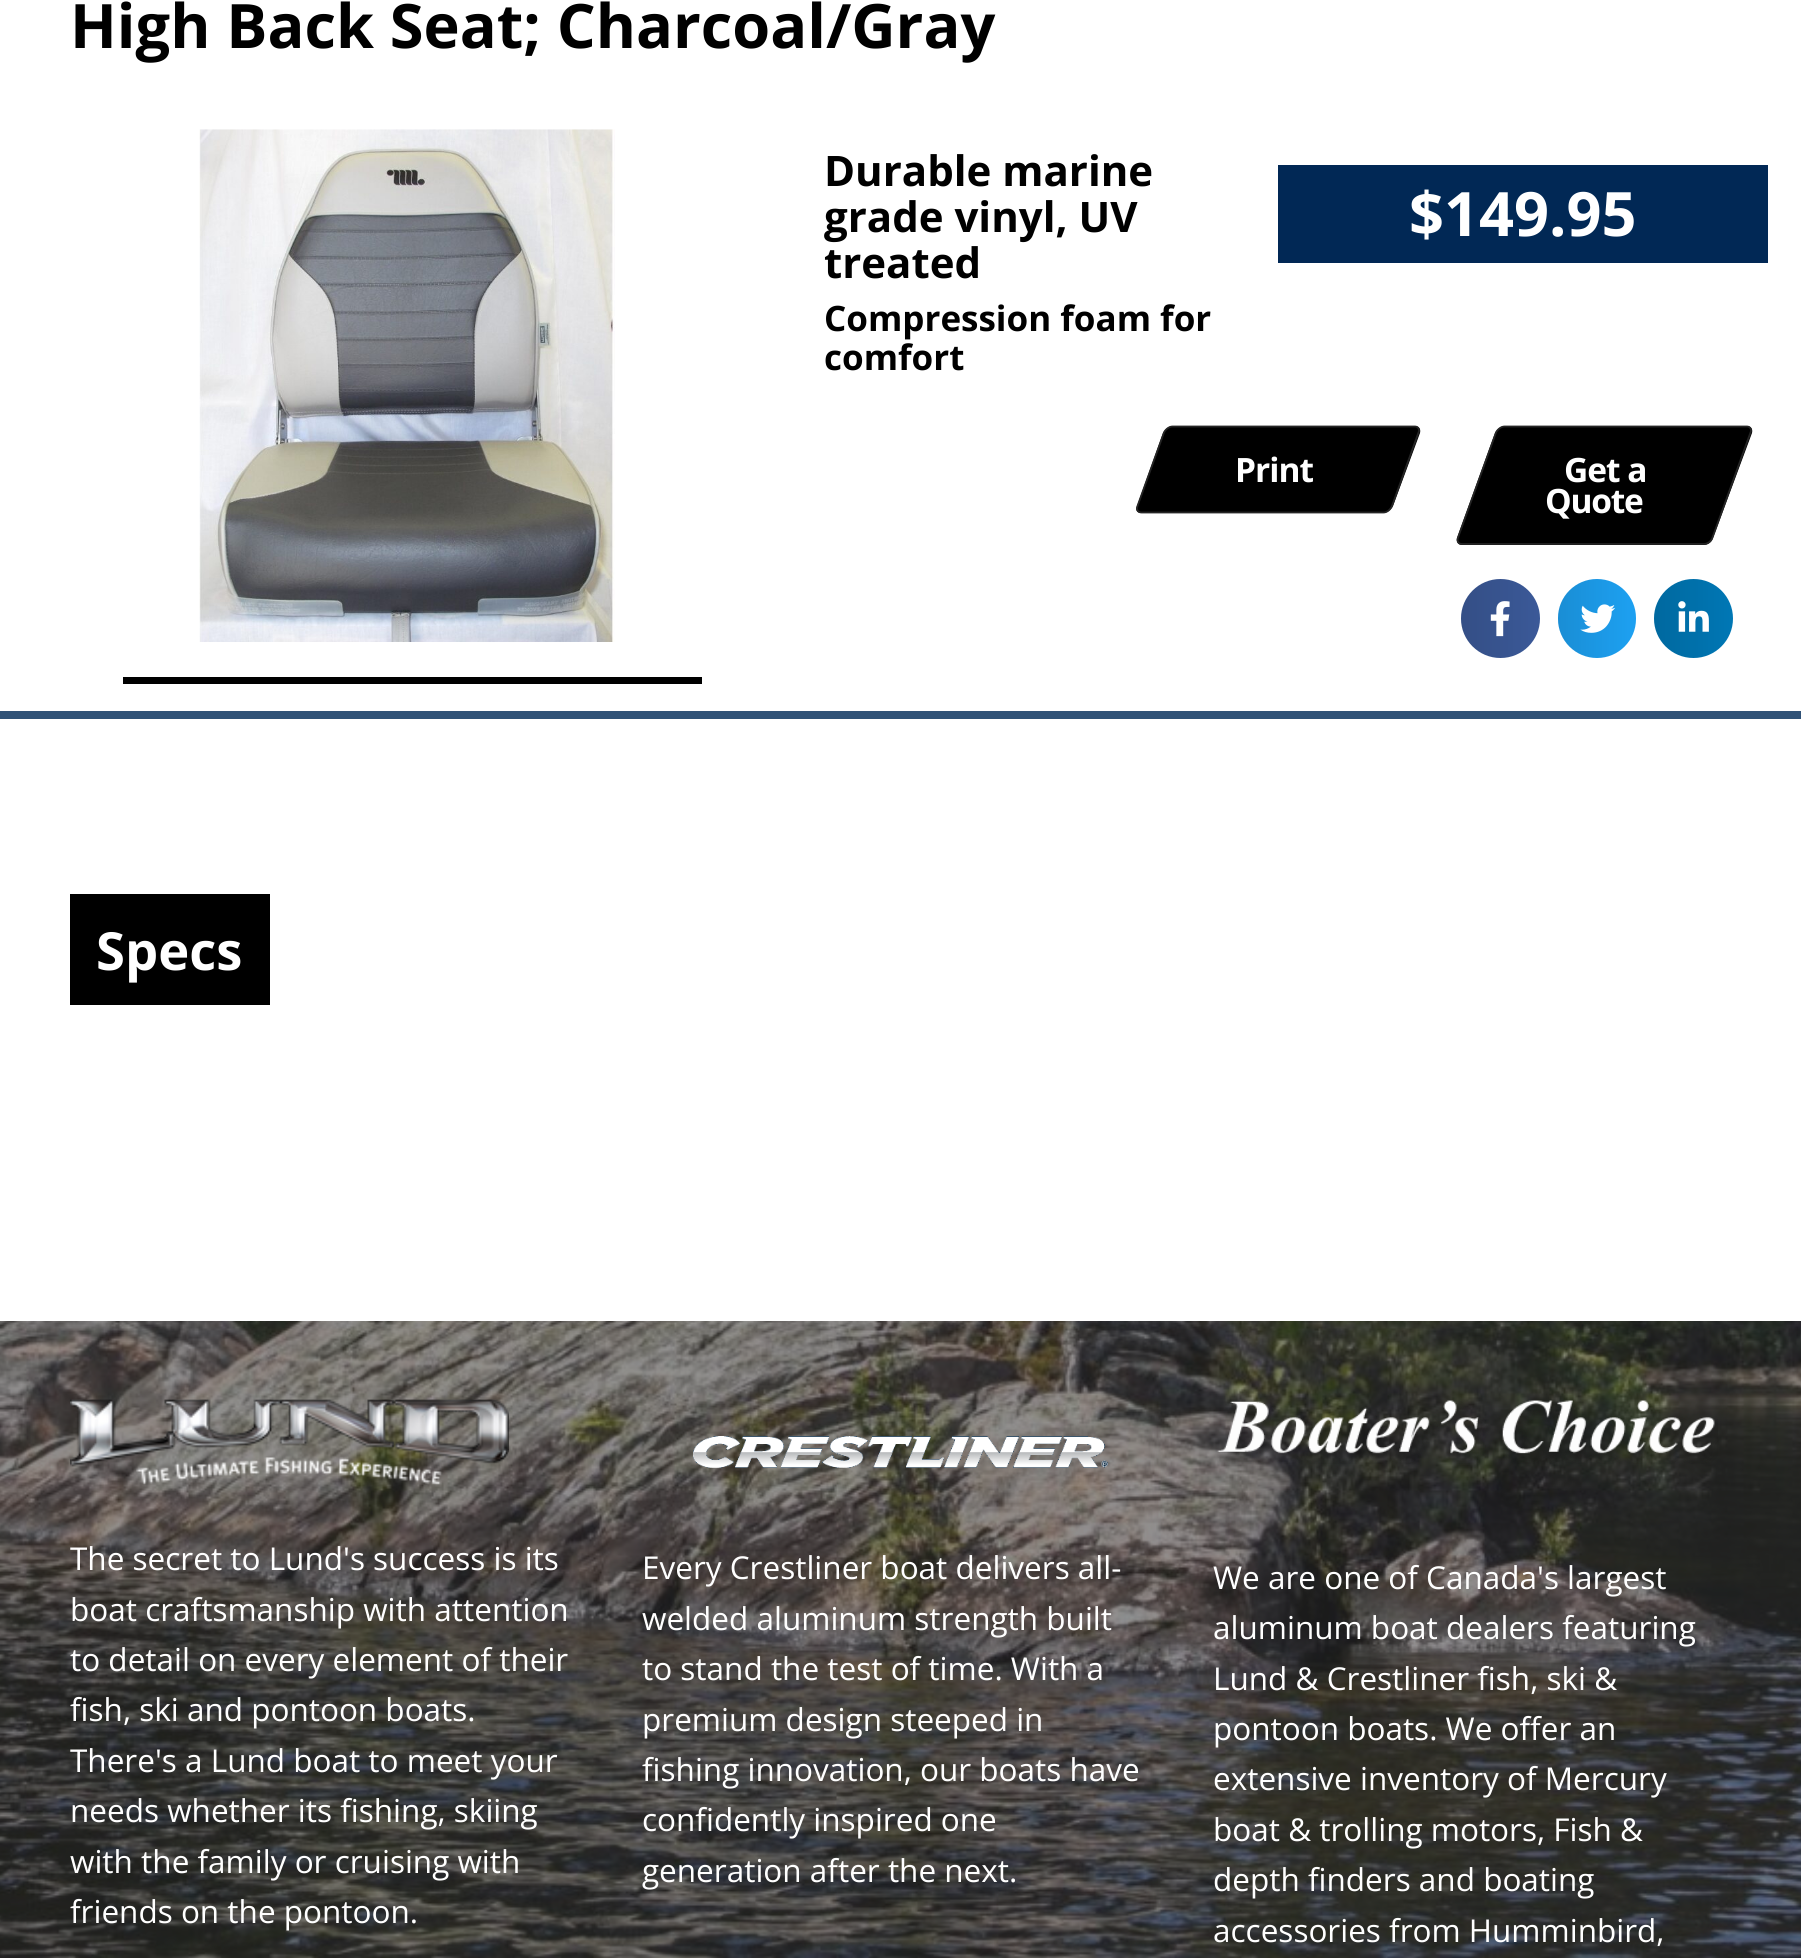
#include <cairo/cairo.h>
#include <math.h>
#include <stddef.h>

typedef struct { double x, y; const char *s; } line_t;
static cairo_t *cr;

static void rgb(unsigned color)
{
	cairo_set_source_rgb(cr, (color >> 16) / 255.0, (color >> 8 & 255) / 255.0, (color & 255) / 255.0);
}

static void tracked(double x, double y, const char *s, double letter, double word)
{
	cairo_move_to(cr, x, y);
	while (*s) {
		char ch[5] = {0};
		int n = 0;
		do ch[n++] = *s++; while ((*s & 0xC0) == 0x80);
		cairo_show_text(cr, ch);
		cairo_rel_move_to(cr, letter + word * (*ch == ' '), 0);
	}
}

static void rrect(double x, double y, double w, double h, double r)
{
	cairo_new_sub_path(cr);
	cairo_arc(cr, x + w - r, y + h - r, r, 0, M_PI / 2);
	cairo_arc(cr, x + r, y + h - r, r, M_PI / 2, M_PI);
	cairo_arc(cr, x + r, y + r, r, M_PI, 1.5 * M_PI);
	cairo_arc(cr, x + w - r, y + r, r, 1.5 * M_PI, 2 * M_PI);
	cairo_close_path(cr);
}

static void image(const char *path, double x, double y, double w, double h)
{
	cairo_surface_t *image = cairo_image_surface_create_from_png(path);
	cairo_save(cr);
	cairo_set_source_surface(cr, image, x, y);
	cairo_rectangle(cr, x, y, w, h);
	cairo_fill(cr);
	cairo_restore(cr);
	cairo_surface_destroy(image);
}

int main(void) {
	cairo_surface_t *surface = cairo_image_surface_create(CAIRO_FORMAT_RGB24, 1801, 1958);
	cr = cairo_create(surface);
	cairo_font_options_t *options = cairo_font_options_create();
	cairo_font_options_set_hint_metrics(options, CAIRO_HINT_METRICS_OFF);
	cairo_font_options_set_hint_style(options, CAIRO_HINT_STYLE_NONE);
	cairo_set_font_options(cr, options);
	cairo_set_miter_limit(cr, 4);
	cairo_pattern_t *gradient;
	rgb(0xffffff);
	cairo_paint(cr);
	image("img/1.png", 0, 1321, 1801, 637);
	image("img/2.png", 199, 129, 416, 513);
	rgb(0x000000);
	cairo_rectangle(cr, 123, 677, 579, 7);
	cairo_fill(cr);
	rgb(0x012855);
	cairo_rectangle(cr, 1278, 165, 490, 98);
	cairo_fill(cr);
	rgb(0x000000);
	cairo_new_path(cr);
	cairo_move_to(cr, 1173, 426);
	cairo_line_to(cr, 1415, 426);
	cairo_curve_to(cr, 1419, 426, 1421, 429, 1420, 433);
	cairo_line_to(cr, 1393, 506);
	cairo_curve_to(cr, 1391, 510, 1387, 513, 1383, 513);
	cairo_line_to(cr, 1141, 513);
	cairo_curve_to(cr, 1137, 513, 1135, 510, 1137, 506);
	cairo_line_to(cr, 1163, 433);
	cairo_curve_to(cr, 1165, 429, 1169, 426, 1173, 426);
	cairo_close_path(cr);
	cairo_fill(cr);
	cairo_new_path(cr);
	cairo_move_to(cr, 1172.5, 426.5);
	cairo_line_to(cr, 1415, 426.5);
	cairo_curve_to(cr, 1418, 426.5, 1420, 429.5, 1418.5, 432.5);
	cairo_line_to(cr, 1392, 506);
	cairo_curve_to(cr, 1390.5, 509.5, 1387, 512.5, 1383.5, 512.5);
	cairo_line_to(cr, 1141.5, 512.5);
	cairo_curve_to(cr, 1138, 512.5, 1136, 509.5, 1137.5, 506);
	cairo_line_to(cr, 1164, 432.5);
	cairo_curve_to(cr, 1165.5, 429.5, 1169, 426.5, 1172.5, 426.5);
	cairo_close_path(cr);
	rgb(0x252525);
	cairo_set_line_width(cr, 1.8);
	cairo_stroke(cr);
	rgb(0x000000);
	cairo_new_path(cr);
	cairo_move_to(cr, 1505, 426);
	cairo_line_to(cr, 1747, 426);
	cairo_curve_to(cr, 1751, 426, 1753, 429, 1752, 433);
	cairo_line_to(cr, 1713, 538);
	cairo_curve_to(cr, 1712, 542, 1708, 545, 1704, 545);
	cairo_line_to(cr, 1462, 545);
	cairo_curve_to(cr, 1458, 545, 1456, 542, 1457, 538);
	cairo_line_to(cr, 1495, 433);
	cairo_curve_to(cr, 1497, 429, 1501, 426, 1505, 426);
	cairo_close_path(cr);
	cairo_fill(cr);
	cairo_new_path(cr);
	cairo_move_to(cr, 1504.5, 426.5);
	cairo_line_to(cr, 1747, 426.5);
	cairo_curve_to(cr, 1750, 426.5, 1752, 429.5, 1750.5, 432.5);
	cairo_line_to(cr, 1712.5, 537.5);
	cairo_curve_to(cr, 1711.5, 541, 1707.5, 544, 1704, 544);
	cairo_line_to(cr, 1462, 544);
	cairo_curve_to(cr, 1458.5, 544, 1456.5, 541, 1458, 537.5);
	cairo_line_to(cr, 1496, 432.5);
	cairo_curve_to(cr, 1497.5, 429.5, 1501, 426.5, 1504.5, 426.5);
	cairo_close_path(cr);
	rgb(0x252525);
	cairo_stroke(cr);
	rgb(0x3b5998);
	cairo_arc(cr, 1500.5, 618.5, 39.5, 0, 2 * M_PI);
	cairo_fill(cr);
	gradient = cairo_pattern_create_linear(1461, 619, 1540, 619);
	cairo_pattern_add_color_stop_rgba(gradient, 0, 0, 0, 0, 0.12);
	cairo_pattern_add_color_stop_rgba(gradient, 1, 0, 0, 0, 0);
	cairo_set_source(cr, gradient);
	cairo_pattern_destroy(gradient);
	cairo_arc(cr, 1500.5, 618.5, 39.5, 0, 2 * M_PI);
	cairo_fill(cr);
	image("img/3.png", 1490, 601, 20, 36);
	rgb(0x1da1f2);
	rrect(1558, 579, 78, 79, 39);
	cairo_fill(cr);
	gradient = cairo_pattern_create_linear(1558, 619, 1636, 619);
	cairo_pattern_add_color_stop_rgba(gradient, 0, 0, 0, 0, 0.12);
	cairo_pattern_add_color_stop_rgba(gradient, 1, 0, 0, 0, 0);
	cairo_set_source(cr, gradient);
	cairo_pattern_destroy(gradient);
	rrect(1558, 579, 78, 79, 39);
	cairo_fill(cr);
	image("img/4.png", 1580, 604, 36, 29);
	rgb(0x0077b5);
	cairo_arc(cr, 1693.5, 618.5, 39.5, 0, 2 * M_PI);
	cairo_fill(cr);
	gradient = cairo_pattern_create_linear(1654, 619, 1733, 619);
	cairo_pattern_add_color_stop_rgba(gradient, 0, 0, 0, 0, 0.12);
	cairo_pattern_add_color_stop_rgba(gradient, 1, 0, 0, 0, 0);
	cairo_set_source(cr, gradient);
	cairo_pattern_destroy(gradient);
	cairo_arc(cr, 1693.5, 618.5, 39.5, 0, 2 * M_PI);
	cairo_fill(cr);
	image("img/5.png", 1678, 601, 31, 31);
	rgb(0x305277);
	cairo_rectangle(cr, 0, 711, 1801, 8);
	cairo_fill(cr);
	rgb(0x000000);
	cairo_rectangle(cr, 70, 894, 200, 111);
	cairo_fill(cr);
	cairo_set_source_rgba(cr, 0.2, 0.2, 0.2, 0.54);
	cairo_rectangle(cr, 0, 1321, 1801, 637);
	cairo_fill(cr);
	image("img/6.png", 70, 1399, 440, 86);
	image("img/7.png", 693, 1436, 415, 32);
	image("img/8.png", 1217, 1400, 501, 64);
	cairo_select_font_face(cr, "Open Sans", CAIRO_FONT_SLANT_NORMAL, CAIRO_FONT_WEIGHT_BOLD);
	cairo_set_font_size(cr, 61.25);
	rgb(0x000000);
	cairo_move_to(cr, 70, 48);
	cairo_show_text(cr, "High Back Seat; Charcoal/Gray");
	cairo_set_font_size(cr, 42);
	{
		static const line_t items[] = {
			{824, 186, "Durable marine"},
			{824, 232, "grade vinyl, UV"},
			{824, 278, "treated"},
		};
		for (size_t i = 0; i < sizeof items / sizeof *items; i++) {
			cairo_move_to(cr, items[i].x, items[i].y);
			cairo_show_text(cr, items[i].s);
		}
	}
	cairo_set_font_size(cr, 35);
	cairo_move_to(cr, 824, 331);
	cairo_show_text(cr, "Compression foam for");
	cairo_move_to(cr, 824, 370);
	cairo_show_text(cr, "comfort");
	cairo_set_font_size(cr, 61.25);
	rgb(0xffffff);
	cairo_move_to(cr, 1409, 236);
	cairo_show_text(cr, "$149.95");
	cairo_set_font_size(cr, 33.5);
	tracked(1235, 482, "Print", -1, 0);
	tracked(1564, 482, "Get a", -1, 0);
	tracked(1545, 513, "Quote", -1.25, 0);
	cairo_set_font_size(cr, 52.5);
	cairo_move_to(cr, 96, 970);
	cairo_show_text(cr, "Specs");
	cairo_select_font_face(cr, "Open Sans", CAIRO_FONT_SLANT_NORMAL, CAIRO_FONT_WEIGHT_NORMAL);
	cairo_set_font_size(cr, 31.5);
	{
		static const line_t items[] = {
			{70, 1570, "The secret to Lund's success is its"},
			{70, 1621, "boat craftsmanship with attention"},
			{70, 1671, "to detail on every element of their"},
			{70, 1721, "fish, ski and pontoon boats."},
			{70, 1772, "There's a Lund boat to meet your"},
			{70, 1822, "needs whether its fishing, skiing"},
			{70, 1873, "with the family or cruising with"},
			{70, 1923, "friends on the pontoon."},
			{642, 1579, "Every Crestliner boat delivers all-"},
			{642, 1630, "welded aluminum strength built"},
			{642, 1680, "to stand the test of time. With a"},
			{642, 1731, "premium design steeped in"},
			{642, 1781, "fishing innovation, our boats have"},
			{642, 1831, "confidently inspired one"},
			{642, 1882, "generation after the next."},
			{1213, 1589, "We are one of Canada's largest"},
			{1213, 1639, "aluminum boat dealers featuring"},
			{1213, 1690, "Lund & Crestliner fish, ski &"},
			{1213, 1740, "pontoon boats. We offer an"},
			{1213, 1790, "extensive inventory of Mercury"},
			{1213, 1841, "boat & trolling motors, Fish &"},
			{1213, 1891, "depth finders and boating"},
			{1213, 1942, "accessories from Humminbird,"},
		};
		for (size_t i = 0; i < sizeof items / sizeof *items; i++) {
			cairo_move_to(cr, items[i].x, items[i].y);
			cairo_show_text(cr, items[i].s);
		}
	}
	cairo_surface_write_to_png(surface, "page.png");
	cairo_font_options_destroy(options);
	cairo_destroy(cr);
	cairo_surface_destroy(surface);
	return 0;
}
